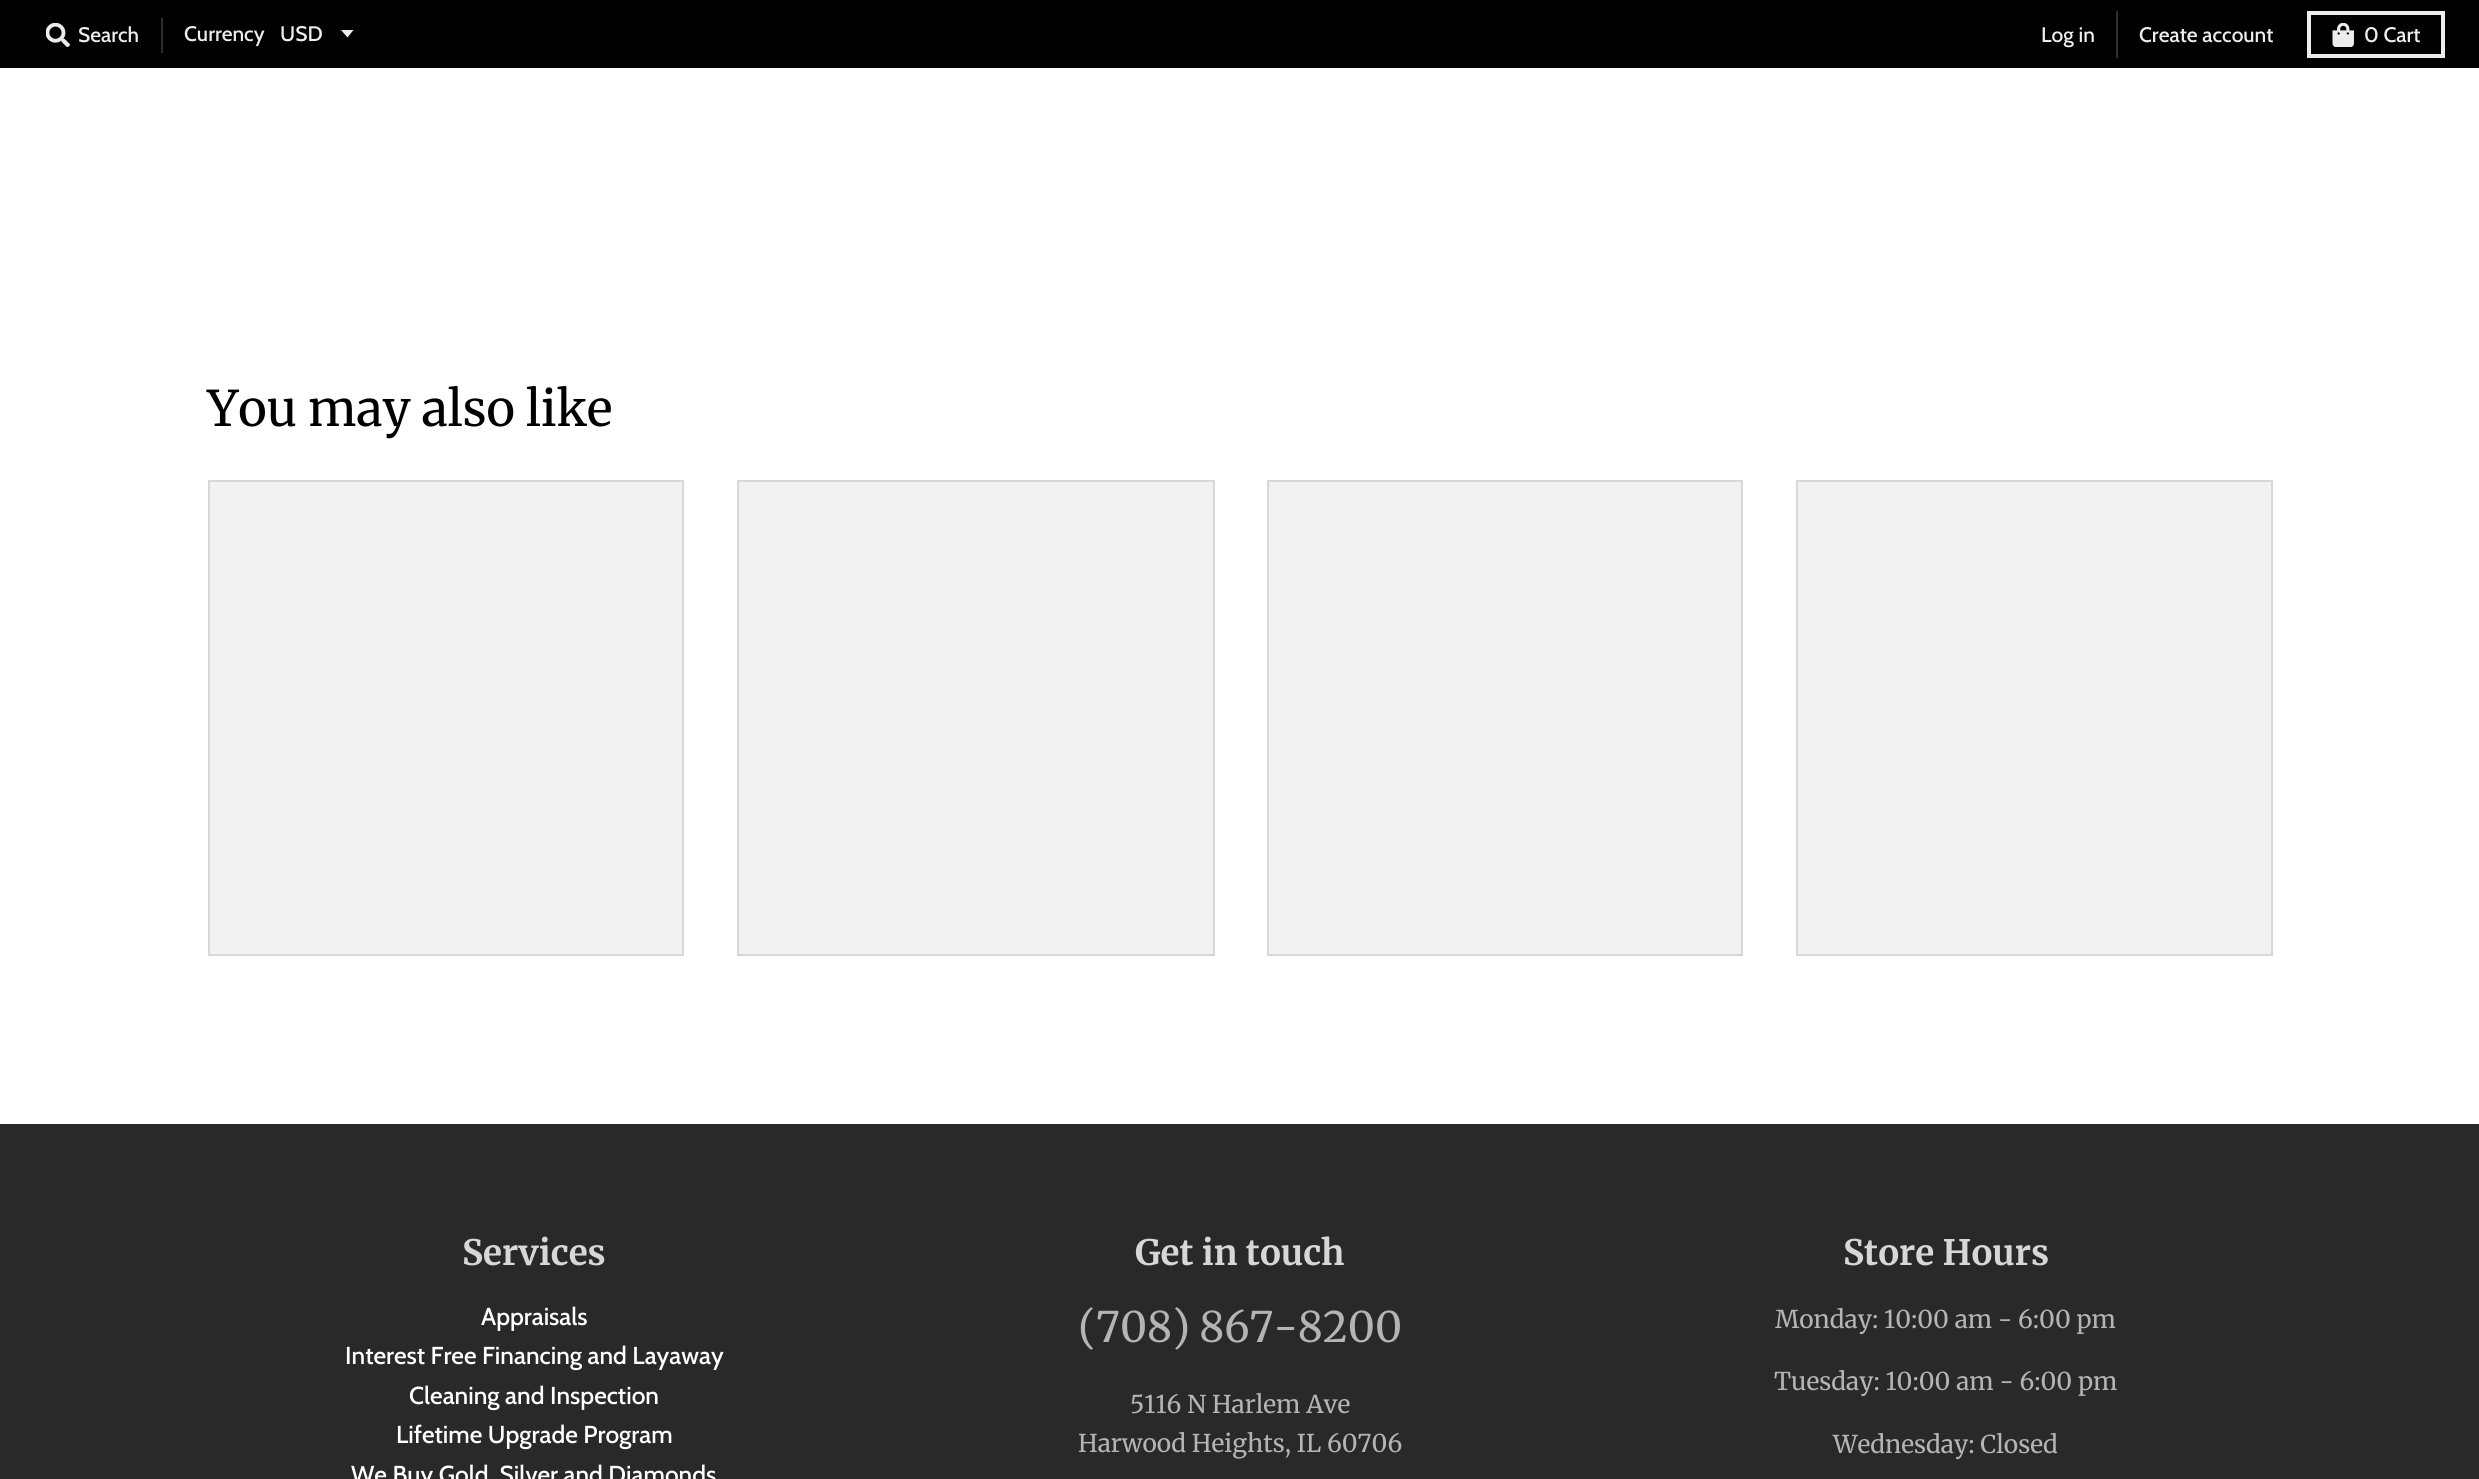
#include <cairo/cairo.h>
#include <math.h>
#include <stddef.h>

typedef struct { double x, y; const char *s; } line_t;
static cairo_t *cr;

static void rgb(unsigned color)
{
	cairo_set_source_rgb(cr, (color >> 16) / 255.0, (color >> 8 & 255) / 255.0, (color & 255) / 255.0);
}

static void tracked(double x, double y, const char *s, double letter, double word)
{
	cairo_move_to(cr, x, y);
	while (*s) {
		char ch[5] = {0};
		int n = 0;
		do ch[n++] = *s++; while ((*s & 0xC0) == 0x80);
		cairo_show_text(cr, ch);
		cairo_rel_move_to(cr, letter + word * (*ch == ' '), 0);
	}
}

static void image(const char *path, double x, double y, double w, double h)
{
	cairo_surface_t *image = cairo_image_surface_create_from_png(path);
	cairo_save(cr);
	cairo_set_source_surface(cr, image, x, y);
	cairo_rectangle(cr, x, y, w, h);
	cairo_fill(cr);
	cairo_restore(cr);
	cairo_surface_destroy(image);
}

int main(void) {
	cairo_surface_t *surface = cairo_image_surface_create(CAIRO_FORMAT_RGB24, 2479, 1479);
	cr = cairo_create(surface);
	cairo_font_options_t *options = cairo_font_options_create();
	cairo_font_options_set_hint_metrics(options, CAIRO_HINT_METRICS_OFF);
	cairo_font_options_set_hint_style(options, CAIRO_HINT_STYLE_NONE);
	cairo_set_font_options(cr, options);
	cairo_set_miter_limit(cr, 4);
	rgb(0xffffff);
	cairo_paint(cr);
	rgb(0x000000);
	cairo_rectangle(cr, 0, 0, 2479, 68);
	cairo_fill(cr);
	image("img/1.png", 46, 23, 24, 24);
	rgb(0x2f2f2f);
	cairo_rectangle(cr, 161, 18, 2, 35);
	cairo_fill(cr);
	rgb(0xeeeded);
	cairo_new_path(cr);
	cairo_move_to(cr, 341, 30);
	cairo_line_to(cr, 347.5, 37.5);
	cairo_line_to(cr, 353.5, 30);
	cairo_close_path(cr);
	cairo_fill(cr);
	rgb(0x2f2f2f);
	cairo_rectangle(cr, 2116, 11, 2, 47);
	cairo_fill(cr);
	cairo_rectangle(cr, 2309, 13, 134, 43);
	rgb(0xeeeded);
	cairo_set_line_width(cr, 4);
	cairo_stroke(cr);
	image("img/2.png", 2332, 23, 22, 24);
	rgb(0xf2f2f2);
	cairo_rectangle(cr, 209, 481, 474, 474);
	cairo_fill_preserve(cr);
	rgb(0xd8d8d8);
	cairo_set_line_width(cr, 2);
	cairo_stroke(cr);
	rgb(0xf2f2f2);
	cairo_rectangle(cr, 738, 481, 476, 474);
	cairo_fill_preserve(cr);
	rgb(0xd8d8d8);
	cairo_stroke(cr);
	rgb(0xf2f2f2);
	cairo_rectangle(cr, 1268, 481, 474, 474);
	cairo_fill_preserve(cr);
	rgb(0xd8d8d8);
	cairo_stroke(cr);
	rgb(0xf2f2f2);
	cairo_rectangle(cr, 1797, 481, 475, 474);
	cairo_fill_preserve(cr);
	rgb(0xd8d8d8);
	cairo_stroke(cr);
	rgb(0x292929);
	cairo_rectangle(cr, 0, 1124, 2479, 355);
	cairo_fill(cr);
	cairo_select_font_face(cr, "Cabin Medium", CAIRO_FONT_SLANT_NORMAL, CAIRO_FONT_WEIGHT_NORMAL);
	cairo_set_font_size(cr, 21);
	rgb(0xeeeded);
	{
		static const line_t items[] = {
			{78, 42, "Search"},
			{184, 41, "Currency"},
			{280, 41, "USD"},
			{2041, 42, "Log in"},
			{2139, 42, "Create account"},
			{2364, 42, "0 Cart"},
		};
		for (size_t i = 0; i < sizeof items / sizeof *items; i++) {
			cairo_move_to(cr, items[i].x, items[i].y);
			cairo_show_text(cr, items[i].s);
		}
	}
	cairo_select_font_face(cr, "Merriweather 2", CAIRO_FONT_SLANT_NORMAL, CAIRO_FONT_WEIGHT_NORMAL);
	cairo_set_font_size(cr, 49);
	rgb(0x000000);
	cairo_move_to(cr, 207, 426);
	cairo_show_text(cr, "You may also like");
	cairo_select_font_face(cr, "Merriweather", CAIRO_FONT_SLANT_NORMAL, CAIRO_FONT_WEIGHT_BOLD);
	cairo_set_font_size(cr, 35);
	rgb(0xd7d7d7);
	cairo_move_to(cr, 462, 1265);
	cairo_show_text(cr, "Services");
	cairo_select_font_face(cr, "Cabin Medium", CAIRO_FONT_SLANT_NORMAL, CAIRO_FONT_WEIGHT_NORMAL);
	cairo_set_font_size(cr, 24.5);
	rgb(0xffffff);
	{
		static const line_t items[] = {
			{481, 1325, "Appraisals"},
			{345, 1364, "Interest Free Financing and Layaway"},
			{409, 1404, "Cleaning and Inspection"},
			{396, 1443, "Lifetime Upgrade Program"},
			{351, 1483, "We Buy Gold, Silver and Diamonds"},
		};
		for (size_t i = 0; i < sizeof items / sizeof *items; i++) {
			cairo_move_to(cr, items[i].x, items[i].y);
			cairo_show_text(cr, items[i].s);
		}
	}
	cairo_select_font_face(cr, "Merriweather", CAIRO_FONT_SLANT_NORMAL, CAIRO_FONT_WEIGHT_BOLD);
	cairo_set_font_size(cr, 35);
	rgb(0xd7d7d7);
	cairo_move_to(cr, 1135, 1265);
	cairo_show_text(cr, "Get in touch");
	cairo_select_font_face(cr, "Merriweather", CAIRO_FONT_SLANT_NORMAL, CAIRO_FONT_WEIGHT_NORMAL);
	cairo_set_font_size(cr, 42);
	rgb(0xb4b4b4);
	tracked(1078, 1342, "(708) 867-8200", 0, -1);
	cairo_set_font_size(cr, 24.5);
	cairo_move_to(cr, 1130, 1413);
	cairo_show_text(cr, "5116 N Harlem Ave");
	cairo_move_to(cr, 1078, 1452);
	cairo_show_text(cr, "Harwood Heights, IL 60706");
	cairo_select_font_face(cr, "Merriweather", CAIRO_FONT_SLANT_NORMAL, CAIRO_FONT_WEIGHT_BOLD);
	cairo_set_font_size(cr, 35);
	rgb(0xd7d7d7);
	cairo_move_to(cr, 1843, 1265);
	cairo_show_text(cr, "Store Hours");
	cairo_select_font_face(cr, "Merriweather", CAIRO_FONT_SLANT_NORMAL, CAIRO_FONT_WEIGHT_NORMAL);
	cairo_set_font_size(cr, 24.5);
	rgb(0xb4b4b4);
	{
		static const line_t items[] = {
			{1775, 1328, "Monday: 10:00 am - 6:00 pm"},
			{1774, 1390, "Tuesday: 10:00 am - 6:00 pm"},
			{1833, 1453, "Wednesday: Closed"},
		};
		for (size_t i = 0; i < sizeof items / sizeof *items; i++) {
			cairo_move_to(cr, items[i].x, items[i].y);
			cairo_show_text(cr, items[i].s);
		}
	}
	cairo_surface_write_to_png(surface, "page.png");
	cairo_font_options_destroy(options);
	cairo_destroy(cr);
	cairo_surface_destroy(surface);
	return 0;
}
